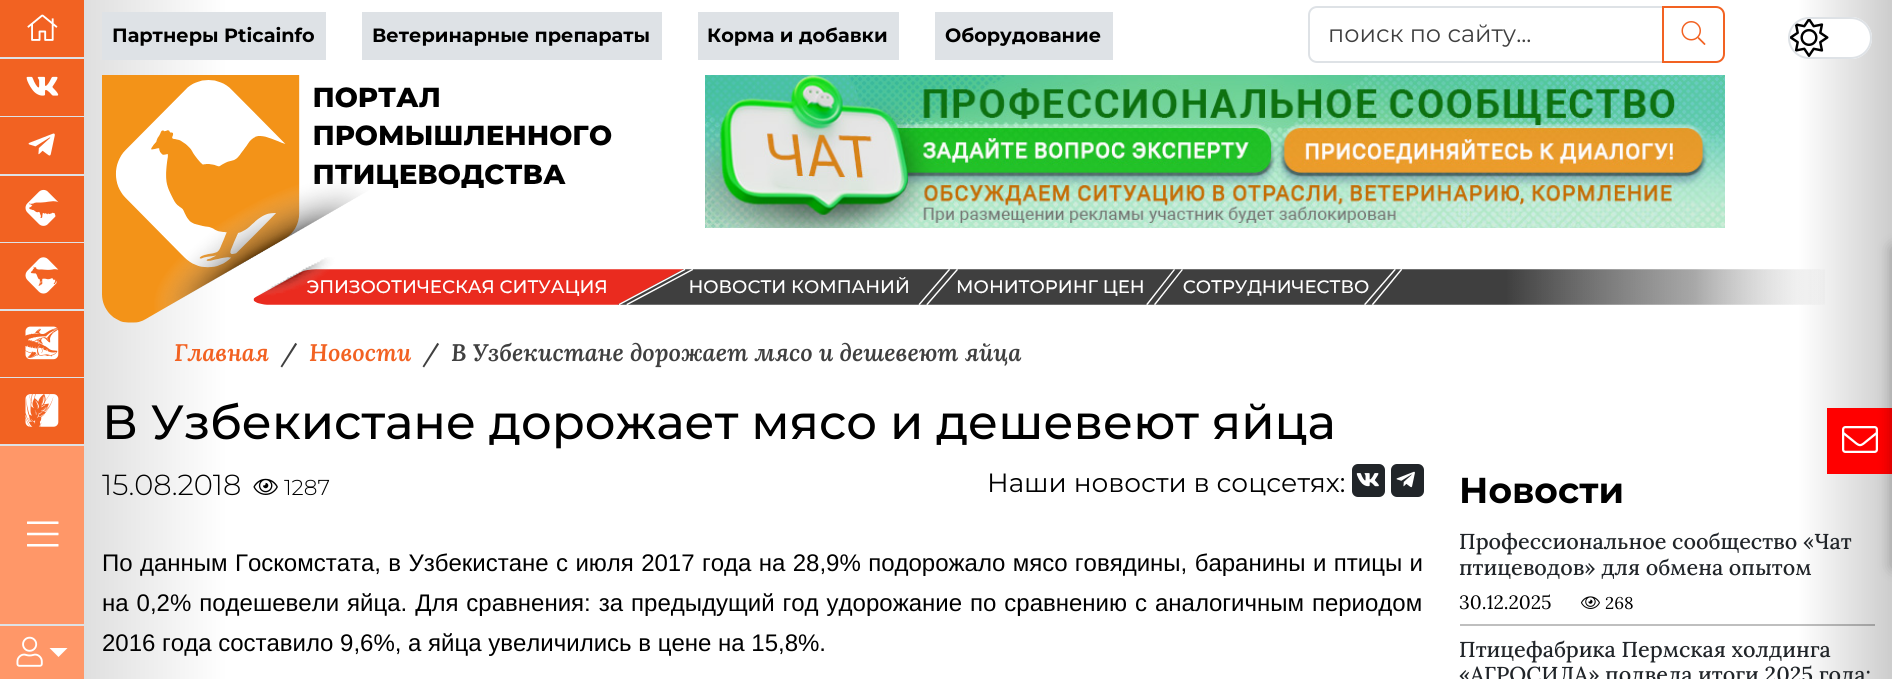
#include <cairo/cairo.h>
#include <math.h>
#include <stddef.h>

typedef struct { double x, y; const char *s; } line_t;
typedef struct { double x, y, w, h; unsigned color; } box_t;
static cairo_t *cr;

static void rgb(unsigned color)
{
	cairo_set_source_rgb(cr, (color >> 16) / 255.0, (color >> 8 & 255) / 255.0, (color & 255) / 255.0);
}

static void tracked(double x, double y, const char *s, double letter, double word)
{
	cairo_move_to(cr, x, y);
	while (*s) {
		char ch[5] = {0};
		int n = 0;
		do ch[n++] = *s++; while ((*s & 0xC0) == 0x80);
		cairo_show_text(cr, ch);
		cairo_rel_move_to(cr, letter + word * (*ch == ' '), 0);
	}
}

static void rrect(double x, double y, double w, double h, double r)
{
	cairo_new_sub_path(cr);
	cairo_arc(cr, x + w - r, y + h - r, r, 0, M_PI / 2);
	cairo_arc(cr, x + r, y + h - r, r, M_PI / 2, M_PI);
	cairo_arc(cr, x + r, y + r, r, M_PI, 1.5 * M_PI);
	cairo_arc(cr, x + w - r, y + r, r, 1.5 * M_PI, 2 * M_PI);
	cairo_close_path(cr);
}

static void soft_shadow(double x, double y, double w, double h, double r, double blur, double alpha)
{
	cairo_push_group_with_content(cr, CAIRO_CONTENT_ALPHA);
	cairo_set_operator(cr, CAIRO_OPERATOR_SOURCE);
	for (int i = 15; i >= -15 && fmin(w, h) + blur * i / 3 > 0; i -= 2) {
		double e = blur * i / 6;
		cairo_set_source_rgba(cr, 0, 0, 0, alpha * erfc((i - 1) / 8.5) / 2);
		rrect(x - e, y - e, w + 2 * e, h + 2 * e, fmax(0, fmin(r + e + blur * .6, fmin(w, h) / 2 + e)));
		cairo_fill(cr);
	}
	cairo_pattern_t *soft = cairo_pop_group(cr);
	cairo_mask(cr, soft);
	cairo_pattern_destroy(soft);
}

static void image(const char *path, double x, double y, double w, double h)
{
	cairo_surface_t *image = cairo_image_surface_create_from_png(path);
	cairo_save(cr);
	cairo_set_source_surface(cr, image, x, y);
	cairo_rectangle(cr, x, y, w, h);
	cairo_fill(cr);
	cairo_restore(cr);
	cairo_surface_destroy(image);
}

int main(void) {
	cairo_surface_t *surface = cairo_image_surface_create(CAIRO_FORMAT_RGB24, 1892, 679);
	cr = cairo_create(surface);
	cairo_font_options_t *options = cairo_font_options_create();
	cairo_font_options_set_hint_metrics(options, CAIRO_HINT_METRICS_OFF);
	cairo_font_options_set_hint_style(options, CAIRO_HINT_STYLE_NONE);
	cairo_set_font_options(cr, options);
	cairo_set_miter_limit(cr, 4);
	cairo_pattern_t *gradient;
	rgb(0xffffff);
	cairo_paint(cr);
	gradient = cairo_pattern_create_linear(0, 340, 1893, 340);
	cairo_pattern_add_color_stop_rgba(gradient, 0, 0.8, 0.8, 0.8, 1);
	cairo_pattern_add_color_stop_rgba(gradient, 0.12, 1, 1, 1, 1);
	cairo_pattern_add_color_stop_rgba(gradient, 0.95, 1, 1, 1, 1);
	cairo_pattern_add_color_stop_rgba(gradient, 1, 0.8, 0.8, 0.8, 1);
	cairo_set_source(cr, gradient);
	cairo_pattern_destroy(gradient);
	cairo_rectangle(cr, 84, 0, 1808, 679);
	cairo_fill(cr);
	gradient = cairo_pattern_create_linear(0, 340, 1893, 340);
	cairo_pattern_add_color_stop_rgba(gradient, 0, 0.6, 0.6, 0.6, 1);
	cairo_pattern_add_color_stop_rgba(gradient, 0.12, 0.749, 0.749, 0.749, 1);
	cairo_pattern_add_color_stop_rgba(gradient, 0.95, 0.749, 0.749, 0.749, 1);
	cairo_pattern_add_color_stop_rgba(gradient, 1, 0.6, 0.6, 0.6, 1);
	cairo_set_source(cr, gradient);
	cairo_pattern_destroy(gradient);
	cairo_rectangle(cr, 1460, 624, 415, 2);
	cairo_fill(cr);
	{
		static const box_t items[] = {
			{0, 446, 84, 233, 0xff9768},
			{0, 0, 84, 57, 0xf26222},
			{0, 57, 84, 2, 0xdee2e6},
		};
		for (size_t i = 0; i < sizeof items / sizeof *items; i++) {
			rgb(items[i].color);
			cairo_rectangle(cr, items[i].x, items[i].y, items[i].w, items[i].h);
			cairo_fill(cr);
		}
	}
	image("img/1.png", 27, 14, 31, 27);
	rgb(0xf26222);
	cairo_rectangle(cr, 0, 59, 84, 57);
	cairo_fill(cr);
	rgb(0xdee2e6);
	cairo_rectangle(cr, 0, 116, 84, 1);
	cairo_fill(cr);
	image("img/2.png", 26, 76, 33, 20);
	rgb(0xf26222);
	cairo_rectangle(cr, 0, 117, 84, 57);
	cairo_fill(cr);
	rgb(0xdee2e6);
	cairo_rectangle(cr, 0, 174, 84, 2);
	cairo_fill(cr);
	image("img/3.png", 28, 133, 27, 23);
	rgb(0xf26222);
	cairo_rectangle(cr, 0, 176, 84, 66);
	cairo_fill(cr);
	rgb(0xdee2e6);
	cairo_rectangle(cr, 0, 242, 84, 1);
	cairo_fill(cr);
	image("img/4.png", 25, 189, 34, 37);
	rgb(0xf26222);
	cairo_rectangle(cr, 0, 243, 84, 66);
	cairo_fill(cr);
	rgb(0xdee2e6);
	cairo_rectangle(cr, 0, 309, 84, 2);
	cairo_fill(cr);
	image("img/5.png", 25, 257, 34, 37);
	rgb(0xf26222);
	cairo_rectangle(cr, 0, 311, 84, 66);
	cairo_fill(cr);
	rgb(0xdee2e6);
	cairo_rectangle(cr, 0, 377, 84, 1);
	cairo_fill(cr);
	image("img/6.png", 25, 326, 34, 34);
	rgb(0xf26222);
	cairo_rectangle(cr, 0, 378, 84, 66);
	cairo_fill(cr);
	rgb(0xdee2e6);
	cairo_rectangle(cr, 0, 444, 84, 2);
	cairo_fill(cr);
	image("img/7.png", 25, 394, 34, 33);
	image("img/8.png", 27, 521, 32, 26);
	cairo_rectangle(cr, 0, 624, 84, 2);
	cairo_fill(cr);
	image("img/9.png", 16, 636, 27, 31);
	rgb(0xffffff);
	cairo_new_path(cr);
	cairo_move_to(cr, 49.5, 648);
	cairo_line_to(cr, 67.5, 648);
	cairo_line_to(cr, 58.5, 657);
	cairo_close_path(cr);
	cairo_fill(cr);
	{
		static const box_t items[] = {
			{102, 12, 224, 48, 0xdee2e6},
			{362, 12, 300, 48, 0xdee2e6},
			{698, 12, 201, 48, 0xdee2e6},
			{935, 12, 178, 48, 0xdee2e6},
		};
		for (size_t i = 0; i < sizeof items / sizeof *items; i++) {
			rgb(items[i].color);
			cairo_rectangle(cr, items[i].x, items[i].y, items[i].w, items[i].h);
			cairo_fill(cr);
		}
	}
	cairo_new_path(cr);
	cairo_move_to(cr, 1317, 7);
	cairo_line_to(cr, 1663, 7);
	cairo_line_to(cr, 1663, 62);
	cairo_line_to(cr, 1317, 62);
	cairo_curve_to(cr, 1312.5, 62, 1309, 58.5, 1309, 54);
	cairo_line_to(cr, 1309, 15);
	cairo_curve_to(cr, 1309, 10.5, 1312.5, 7, 1317, 7);
	cairo_close_path(cr);
	cairo_stroke(cr);
	cairo_new_path(cr);
	cairo_move_to(cr, 1663, 7);
	cairo_line_to(cr, 1716, 7);
	cairo_curve_to(cr, 1720.5, 7, 1724, 10.5, 1724, 15);
	cairo_line_to(cr, 1724, 54);
	cairo_curve_to(cr, 1724, 58.5, 1720.5, 62, 1716, 62);
	cairo_line_to(cr, 1663, 62);
	cairo_close_path(cr);
	rgb(0xf26222);
	cairo_stroke(cr);
	image("img/10.png", 1681, 21, 25, 24);
	rgb(0xffffff);
	rrect(1788, 17, 84, 42, 21);
	cairo_fill(cr);
	image("img/11.png", 1790, 19, 39, 38);
	rrect(1789, 18, 82, 40, 20);
	rgb(0xdee2e6);
	cairo_stroke(cr);
	image("img/12.png", 102, 75, 510, 248);
	image("img/13.png", 705, 75, 1020, 153);
	image("img/14.png", 253, 257, 1572, 48);
	rgb(0xff0000);
	cairo_rectangle(cr, 1827, 408, 65, 66);
	cairo_fill(cr);
	image("img/15.png", 1842, 426, 36, 27);
	rgb(0x000000);
	soft_shadow(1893, 248, 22, 319, 0, 7.5, 0.3);
	image("img/16.png", 253, 478, 25, 17);
	rgb(0x212529);
	rrect(1353, 465, 31, 31, 5);
	cairo_fill_preserve(cr);
	cairo_stroke(cr);
	image("img/17.png", 1356, 473, 23, 14);
	rrect(1392, 465, 31, 31, 5);
	cairo_fill_preserve(cr);
	cairo_stroke(cr);
	image("img/18.png", 1396, 471, 19, 17);
	image("img/19.png", 1581, 596, 19, 13);
	cairo_select_font_face(cr, "Montserrat", CAIRO_FONT_SLANT_NORMAL, CAIRO_FONT_WEIGHT_BOLD);
	cairo_set_font_size(cr, 19.25);
	rgb(0x000000);
	{
		static const line_t items[] = {
			{112, 42, "Партнеры Pticainfo"},
			{372, 42, "Ветеринарные препараты"},
			{707, 42, "Корма и добавки"},
			{945, 42, "Оборудование"},
		};
		for (size_t i = 0; i < sizeof items / sizeof *items; i++) {
			cairo_move_to(cr, items[i].x, items[i].y);
			cairo_show_text(cr, items[i].s);
		}
	}
	cairo_select_font_face(cr, "Montserrat", CAIRO_FONT_SLANT_NORMAL, CAIRO_FONT_WEIGHT_NORMAL);
	cairo_set_font_size(cr, 24);
	rgb(0x404040);
	cairo_move_to(cr, 1328, 42);
	cairo_show_text(cr, "поиск по сайту...");
	cairo_select_font_face(cr, "Lora SemiBold", CAIRO_FONT_SLANT_ITALIC, CAIRO_FONT_WEIGHT_NORMAL);
	rgb(0xf26222);
	cairo_move_to(cr, 174, 361);
	cairo_show_text(cr, "Главная");
	rgb(0x404040);
	cairo_move_to(cr, 281, 361);
	cairo_show_text(cr, "/");
	rgb(0xf26222);
	cairo_move_to(cr, 309, 361);
	cairo_show_text(cr, "Новости");
	rgb(0x404040);
	cairo_move_to(cr, 423, 361);
	cairo_show_text(cr, "/");
	cairo_move_to(cr, 451, 361);
	cairo_show_text(cr, "В Узбекистане дорожает мясо и дешевеют яйца");
	cairo_select_font_face(cr, "Montserrat Medium", CAIRO_FONT_SLANT_NORMAL, CAIRO_FONT_WEIGHT_NORMAL);
	cairo_set_font_size(cr, 48);
	rgb(0x000000);
	cairo_move_to(cr, 102, 439);
	cairo_show_text(cr, "В Узбекистане дорожает мясо и дешевеют яйца");
	cairo_select_font_face(cr, "Montserrat Light", CAIRO_FONT_SLANT_NORMAL, CAIRO_FONT_WEIGHT_NORMAL);
	cairo_set_font_size(cr, 29);
	cairo_move_to(cr, 102, 495);
	cairo_show_text(cr, "15.08.2018");
	cairo_set_font_size(cr, 21.6);
	cairo_move_to(cr, 284, 495);
	cairo_show_text(cr, "1287");
	cairo_select_font_face(cr, "Montserrat", CAIRO_FONT_SLANT_NORMAL, CAIRO_FONT_WEIGHT_NORMAL);
	cairo_set_font_size(cr, 26.4);
	cairo_move_to(cr, 987, 492);
	cairo_show_text(cr, "Наши новости в соцсетях:");
	cairo_select_font_face(cr, "Liberation Sans", CAIRO_FONT_SLANT_NORMAL, CAIRO_FONT_WEIGHT_NORMAL);
	cairo_set_font_size(cr, 24);
	tracked(102, 571, "По данным Госкомстата, в Узбекистане с июля 2017 года на 28,9% подорожало мясо говядины, баранины и птицы и", 0, 0.7);
	tracked(102, 611, "на 0,2% подешевели яйца. Для сравнения: за предыдущий год удорожание по сравнению с аналогичным периодом", 0, 1.3);
	cairo_move_to(cr, 102, 651);
	cairo_show_text(cr, "2016 года составило 9,6%, а яйца увеличились в цене на 15,8%.");
	cairo_select_font_face(cr, "Montserrat", CAIRO_FONT_SLANT_NORMAL, CAIRO_FONT_WEIGHT_BOLD);
	cairo_set_font_size(cr, 36);
	cairo_move_to(cr, 1459, 503);
	cairo_show_text(cr, "Новости");
	cairo_select_font_face(cr, "Lora Medium", CAIRO_FONT_SLANT_NORMAL, CAIRO_FONT_WEIGHT_NORMAL);
	cairo_set_font_size(cr, 21.6);
	rgb(0x212529);
	cairo_move_to(cr, 1459, 549);
	cairo_show_text(cr, "Профессиональное сообщество «Чат");
	cairo_move_to(cr, 1459, 575);
	cairo_show_text(cr, "птицеводов» для обмена опытом");
	cairo_select_font_face(cr, "Lora", CAIRO_FONT_SLANT_NORMAL, CAIRO_FONT_WEIGHT_NORMAL);
	cairo_set_font_size(cr, 19.25);
	rgb(0x000000);
	cairo_move_to(cr, 1459, 609);
	cairo_show_text(cr, "30.12.2025");
	cairo_set_font_size(cr, 17);
	cairo_move_to(cr, 1605, 609);
	cairo_show_text(cr, "268");
	cairo_select_font_face(cr, "Lora Medium", CAIRO_FONT_SLANT_NORMAL, CAIRO_FONT_WEIGHT_NORMAL);
	cairo_set_font_size(cr, 21.6);
	rgb(0x212529);
	cairo_move_to(cr, 1459, 657);
	cairo_show_text(cr, "Птицефабрика Пермская холдинга");
	cairo_move_to(cr, 1459, 682);
	cairo_show_text(cr, "«АГРОСИЛА» подвела итоги 2025 года:");
	cairo_surface_write_to_png(surface, "page.png");
	cairo_font_options_destroy(options);
	cairo_destroy(cr);
	cairo_surface_destroy(surface);
	return 0;
}
